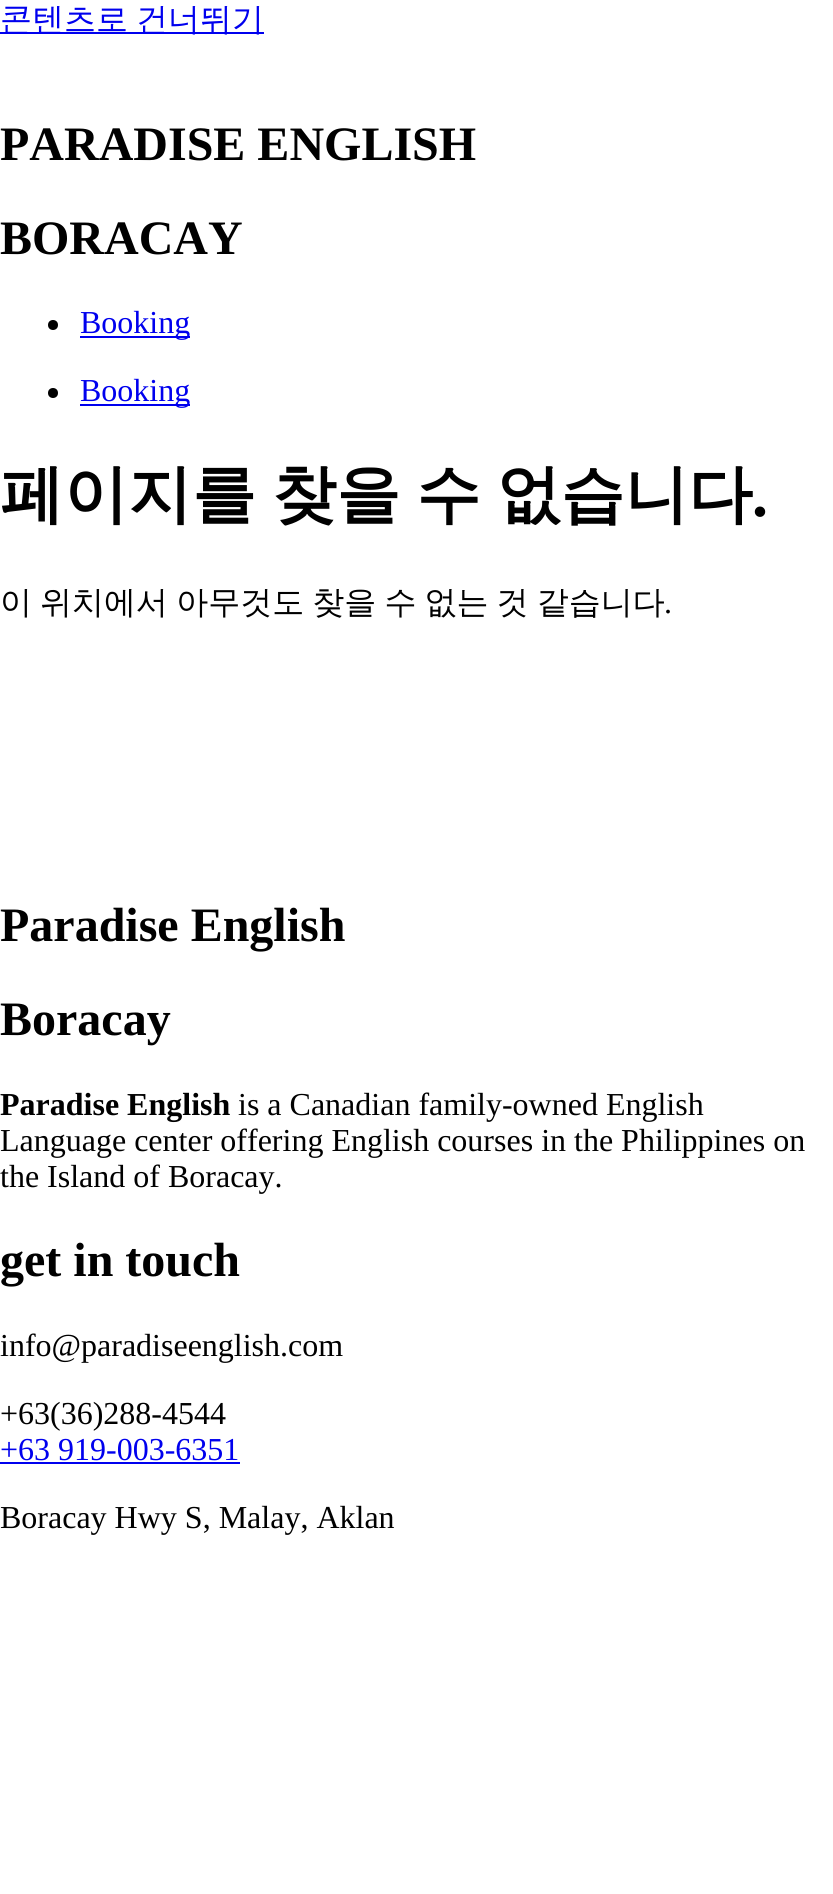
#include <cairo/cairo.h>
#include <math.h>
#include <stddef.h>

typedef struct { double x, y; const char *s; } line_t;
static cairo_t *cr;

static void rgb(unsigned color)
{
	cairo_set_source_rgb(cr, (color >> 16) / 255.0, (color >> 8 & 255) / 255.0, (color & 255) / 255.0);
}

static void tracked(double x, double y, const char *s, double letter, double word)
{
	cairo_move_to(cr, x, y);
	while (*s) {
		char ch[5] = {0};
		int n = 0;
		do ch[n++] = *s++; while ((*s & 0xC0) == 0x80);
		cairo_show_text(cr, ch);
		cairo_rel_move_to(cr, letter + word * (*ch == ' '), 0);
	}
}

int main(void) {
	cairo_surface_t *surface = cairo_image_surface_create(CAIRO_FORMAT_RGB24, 833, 1894);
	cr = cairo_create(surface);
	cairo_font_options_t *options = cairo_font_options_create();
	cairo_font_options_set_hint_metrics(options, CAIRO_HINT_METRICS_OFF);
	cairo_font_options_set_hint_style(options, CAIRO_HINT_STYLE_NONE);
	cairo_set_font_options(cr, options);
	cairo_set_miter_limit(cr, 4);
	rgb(0xffffff);
	cairo_paint(cr);
	rgb(0x0000ee);
	cairo_rectangle(cr, 0, 32, 264, 2);
	cairo_fill(cr);
	rgb(0x000000);
	cairo_arc(cr, 53, 325, 5, 0, 2 * M_PI);
	cairo_fill(cr);
	rgb(0x0000ee);
	cairo_rectangle(cr, 80, 336, 110, 2);
	cairo_fill(cr);
	rgb(0x000000);
	cairo_arc(cr, 53, 393, 5, 0, 2 * M_PI);
	cairo_fill(cr);
	rgb(0x0000ee);
	cairo_rectangle(cr, 80, 404, 110, 2);
	cairo_fill(cr);
	cairo_rectangle(cr, 0, 1462, 240, 2);
	cairo_fill(cr);
	cairo_select_font_face(cr, "WenQuanYi Zen Hei Medium", CAIRO_FONT_SLANT_NORMAL, CAIRO_FONT_WEIGHT_NORMAL);
	cairo_set_font_size(cr, 32);
	tracked(0, 30, "콘텐츠로 건너뛰기", 0, -1.5);
	cairo_select_font_face(cr, "Liberation Serif", CAIRO_FONT_SLANT_NORMAL, CAIRO_FONT_WEIGHT_BOLD);
	cairo_set_font_size(cr, 48);
	rgb(0x000000);
	cairo_move_to(cr, 0, 160);
	cairo_show_text(cr, "PARADISE ENGLISH");
	cairo_move_to(cr, 0, 254);
	cairo_show_text(cr, "BORACAY");
	cairo_select_font_face(cr, "Liberation Serif", CAIRO_FONT_SLANT_NORMAL, CAIRO_FONT_WEIGHT_NORMAL);
	cairo_set_font_size(cr, 32);
	rgb(0x0000ee);
	cairo_move_to(cr, 80, 333);
	cairo_show_text(cr, "Booking");
	cairo_move_to(cr, 80, 401);
	cairo_show_text(cr, "Booking");
	cairo_select_font_face(cr, "WenQuanYi Zen Hei", CAIRO_FONT_SLANT_NORMAL, CAIRO_FONT_WEIGHT_BOLD);
	cairo_set_font_size(cr, 64);
	rgb(0x000000);
	tracked(0, 516, "페이지를 찾을 수 없습니다", 0, -3);
	cairo_select_font_face(cr, "Liberation Serif", CAIRO_FONT_SLANT_NORMAL, CAIRO_FONT_WEIGHT_BOLD);
	cairo_move_to(cr, 752, 516);
	cairo_show_text(cr, ".");
	cairo_select_font_face(cr, "WenQuanYi Zen Hei Medium", CAIRO_FONT_SLANT_NORMAL, CAIRO_FONT_WEIGHT_NORMAL);
	cairo_set_font_size(cr, 32);
	tracked(0, 613, "이 위치에서 아무것도 찾을 수 없는 것 같습니다", 0, -1.5);
	cairo_select_font_face(cr, "Liberation Serif", CAIRO_FONT_SLANT_NORMAL, CAIRO_FONT_WEIGHT_NORMAL);
	cairo_move_to(cr, 664, 613);
	cairo_show_text(cr, ".");
	cairo_select_font_face(cr, "Liberation Serif", CAIRO_FONT_SLANT_NORMAL, CAIRO_FONT_WEIGHT_BOLD);
	cairo_set_font_size(cr, 48);
	cairo_move_to(cr, 0, 941);
	cairo_show_text(cr, "Paradise English");
	cairo_move_to(cr, 0, 1035);
	cairo_show_text(cr, "Boracay");
	cairo_set_font_size(cr, 32);
	cairo_move_to(cr, 0, 1115);
	cairo_show_text(cr, "Paradise English");
	cairo_select_font_face(cr, "Liberation Serif", CAIRO_FONT_SLANT_NORMAL, CAIRO_FONT_WEIGHT_NORMAL);
	{
		static const line_t items[] = {
			{238, 1115, "is a Canadian family-owned English"},
			{0, 1151, "Language center offering English courses in the Philippines on"},
			{0, 1187, "the Island of Boracay."},
		};
		for (size_t i = 0; i < sizeof items / sizeof *items; i++) {
			cairo_move_to(cr, items[i].x, items[i].y);
			cairo_show_text(cr, items[i].s);
		}
	}
	cairo_select_font_face(cr, "Liberation Serif", CAIRO_FONT_SLANT_NORMAL, CAIRO_FONT_WEIGHT_BOLD);
	cairo_set_font_size(cr, 48);
	cairo_move_to(cr, 0, 1276);
	cairo_show_text(cr, "get in touch");
	cairo_select_font_face(cr, "Liberation Serif", CAIRO_FONT_SLANT_NORMAL, CAIRO_FONT_WEIGHT_NORMAL);
	cairo_set_font_size(cr, 32);
	cairo_move_to(cr, 0, 1356);
	cairo_show_text(cr, "info@paradiseenglish.com");
	cairo_move_to(cr, 0, 1424);
	cairo_show_text(cr, "+63(36)288-4544");
	rgb(0x0000ee);
	cairo_move_to(cr, 0, 1460);
	cairo_show_text(cr, "+63 919-003-6351");
	rgb(0x000000);
	cairo_move_to(cr, 0, 1528);
	cairo_show_text(cr, "Boracay Hwy S, Malay, Aklan");
	cairo_surface_write_to_png(surface, "page.png");
	cairo_font_options_destroy(options);
	cairo_destroy(cr);
	cairo_surface_destroy(surface);
	return 0;
}
